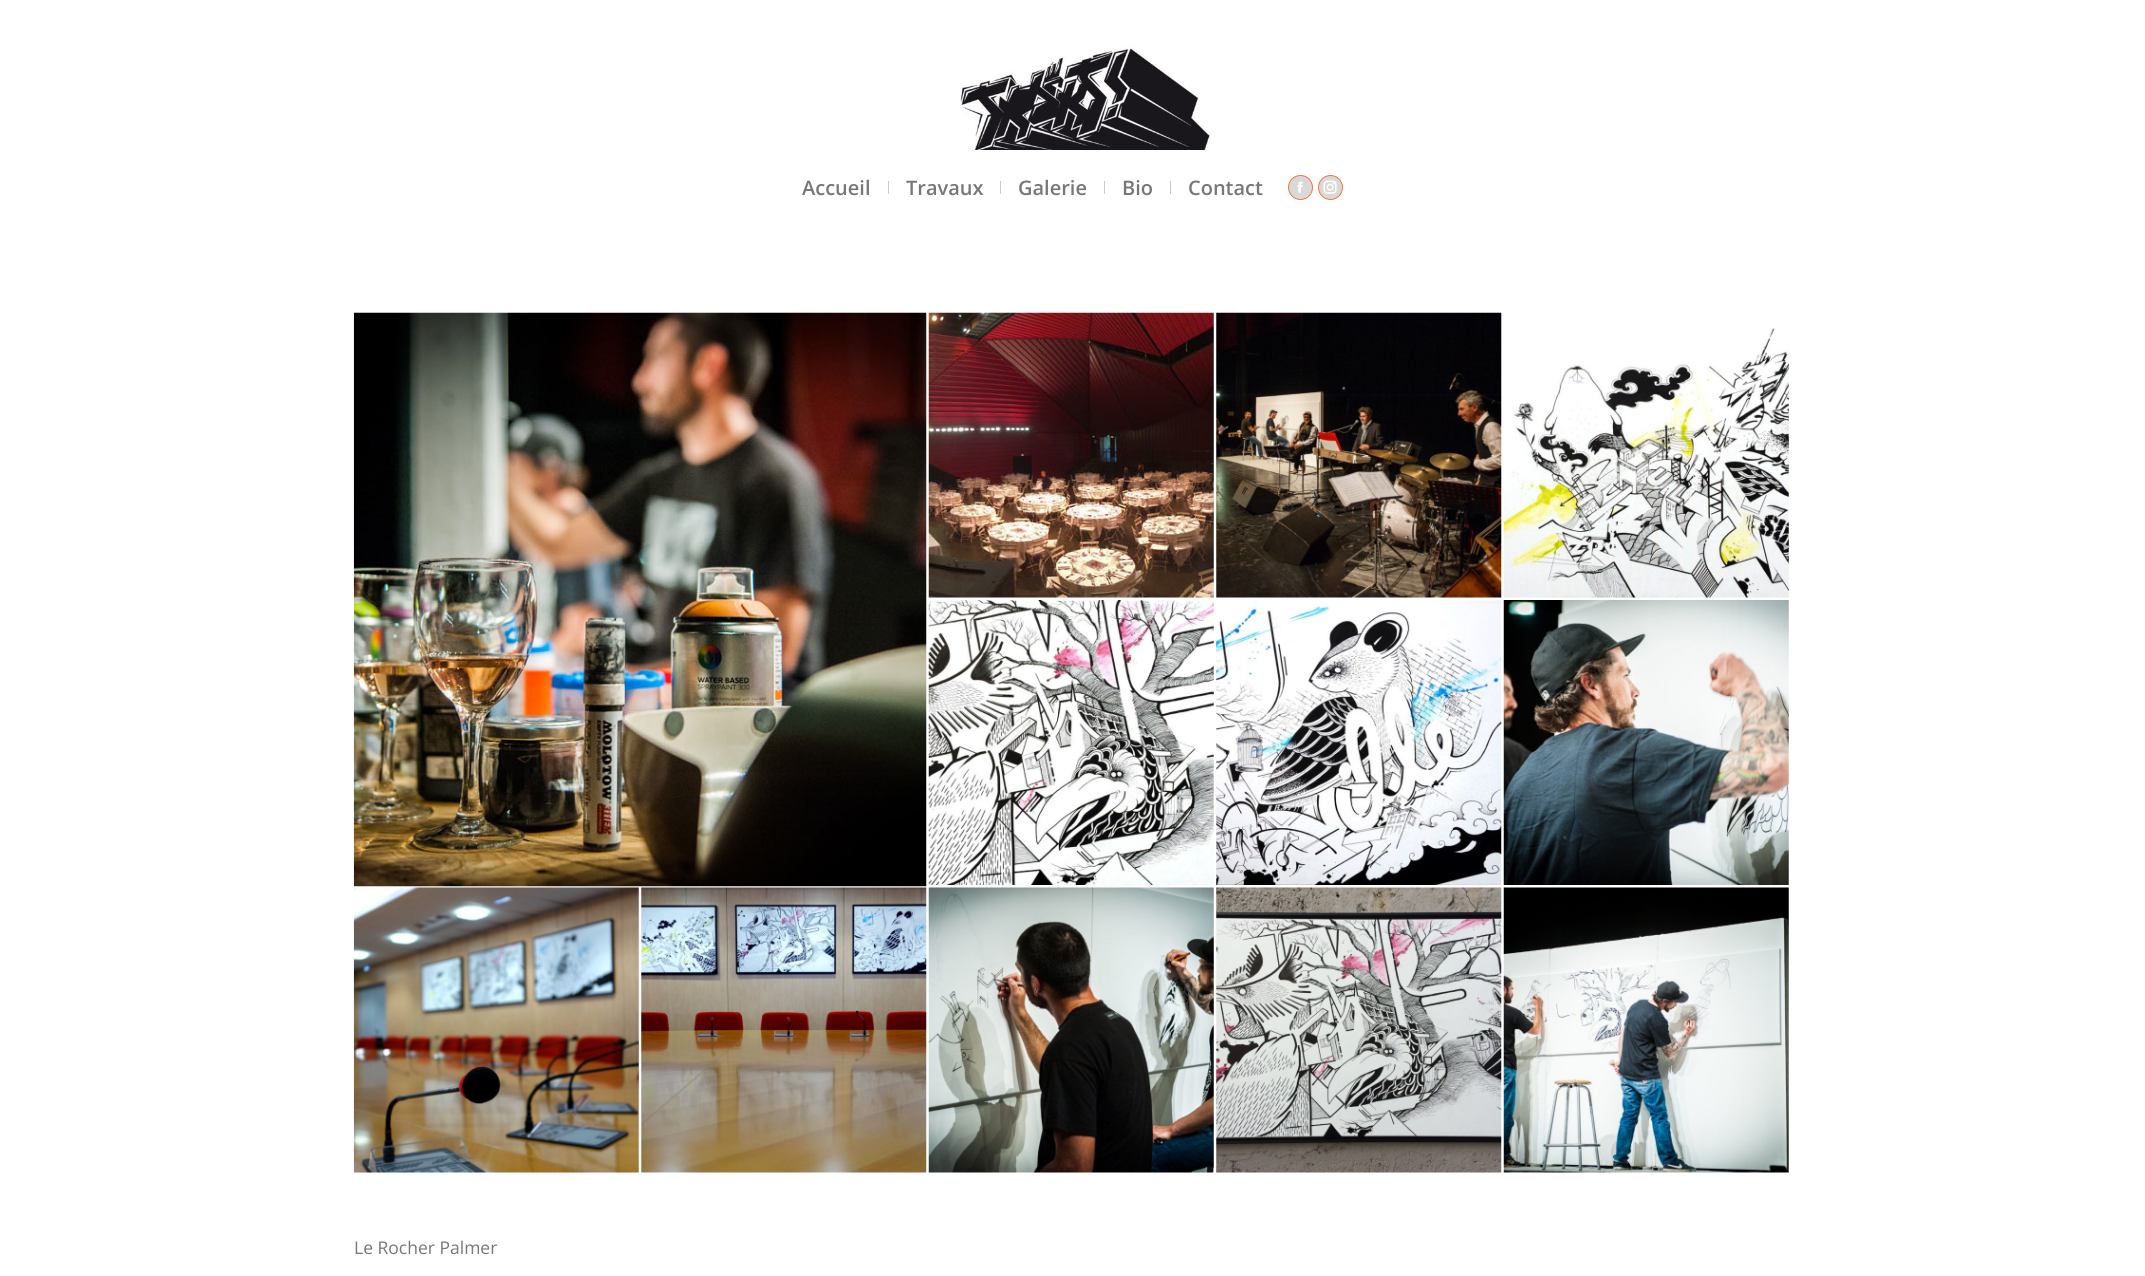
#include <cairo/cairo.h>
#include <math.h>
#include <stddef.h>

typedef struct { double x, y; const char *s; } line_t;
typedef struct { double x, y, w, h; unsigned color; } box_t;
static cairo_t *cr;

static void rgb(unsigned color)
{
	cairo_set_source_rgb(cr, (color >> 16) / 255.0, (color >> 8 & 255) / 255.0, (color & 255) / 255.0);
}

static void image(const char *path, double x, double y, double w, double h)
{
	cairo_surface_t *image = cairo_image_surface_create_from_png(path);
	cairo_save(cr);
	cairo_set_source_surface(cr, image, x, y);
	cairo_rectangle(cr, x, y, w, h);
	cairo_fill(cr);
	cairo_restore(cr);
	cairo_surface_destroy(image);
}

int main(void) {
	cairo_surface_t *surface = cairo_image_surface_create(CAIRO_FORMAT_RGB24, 2145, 1276);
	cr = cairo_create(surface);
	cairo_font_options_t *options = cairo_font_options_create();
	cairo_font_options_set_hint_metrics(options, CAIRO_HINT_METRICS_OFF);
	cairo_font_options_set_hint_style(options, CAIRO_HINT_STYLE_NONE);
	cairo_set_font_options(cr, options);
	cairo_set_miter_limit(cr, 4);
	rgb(0xffffff);
	cairo_paint(cr);
	image("img/1.png", 960, 45, 250, 105);
	{
		static const box_t items[] = {
			{888, 181, 1, 13, 0xcbcbcb},
			{1000, 181, 1, 13, 0xcbcbcb},
			{1104, 181, 1, 13, 0xcbcbcb},
			{1170, 181, 1, 13, 0xcbcbcb},
		};
		for (size_t i = 0; i < sizeof items / sizeof *items; i++) {
			rgb(items[i].color);
			cairo_rectangle(cr, items[i].x, items[i].y, items[i].w, items[i].h);
			cairo_fill(cr);
		}
	}
	rgb(0xd9d9d9);
	cairo_arc(cr, 1300.5, 187.5, 12, 0, 2 * M_PI);
	cairo_fill_preserve(cr);
	rgb(0xf4753f);
	cairo_set_line_width(cr, 1);
	cairo_stroke(cr);
	image("img/2.png", 1297, 181, 6, 12);
	rgb(0xd9d9d9);
	cairo_arc(cr, 1330.5, 187.5, 12, 0, 2 * M_PI);
	cairo_fill_preserve(cr);
	rgb(0xf4753f);
	cairo_stroke(cr);
	image("img/3.png", 1323, 180, 14, 14);
	image("img/4.png", 353, 312, 574, 575);
	image("img/5.png", 928, 312, 286, 286);
	image("img/6.png", 1216, 312, 286, 286);
	image("img/7.png", 1503, 327, 286, 271);
	image("img/8.png", 928, 600, 286, 285);
	image("img/9.png", 1216, 600, 286, 285);
	image("img/10.png", 1503, 600, 286, 285);
	image("img/11.png", 353, 887, 286, 286);
	image("img/12.png", 641, 887, 286, 286);
	image("img/13.png", 928, 887, 286, 286);
	image("img/14.png", 1216, 887, 286, 286);
	image("img/15.png", 1503, 887, 286, 286);
	cairo_select_font_face(cr, "Open Sans SemiBold", CAIRO_FONT_SLANT_NORMAL, CAIRO_FONT_WEIGHT_NORMAL);
	cairo_set_font_size(cr, 20);
	rgb(0x777777);
	{
		static const line_t items[] = {
			{802, 195, "Accueil"},
			{906, 195, "Travaux"},
			{1018, 195, "Galerie"},
			{1122, 195, "Bio"},
			{1188, 195, "Contact"},
		};
		for (size_t i = 0; i < sizeof items / sizeof *items; i++) {
			cairo_move_to(cr, items[i].x, items[i].y);
			cairo_show_text(cr, items[i].s);
		}
	}
	cairo_select_font_face(cr, "Open Sans", CAIRO_FONT_SLANT_NORMAL, CAIRO_FONT_WEIGHT_NORMAL);
	cairo_set_font_size(cr, 17.5);
	cairo_move_to(cr, 354, 1254);
	cairo_show_text(cr, "Le Rocher Palmer");
	cairo_surface_write_to_png(surface, "page.png");
	cairo_font_options_destroy(options);
	cairo_destroy(cr);
	cairo_surface_destroy(surface);
	return 0;
}
